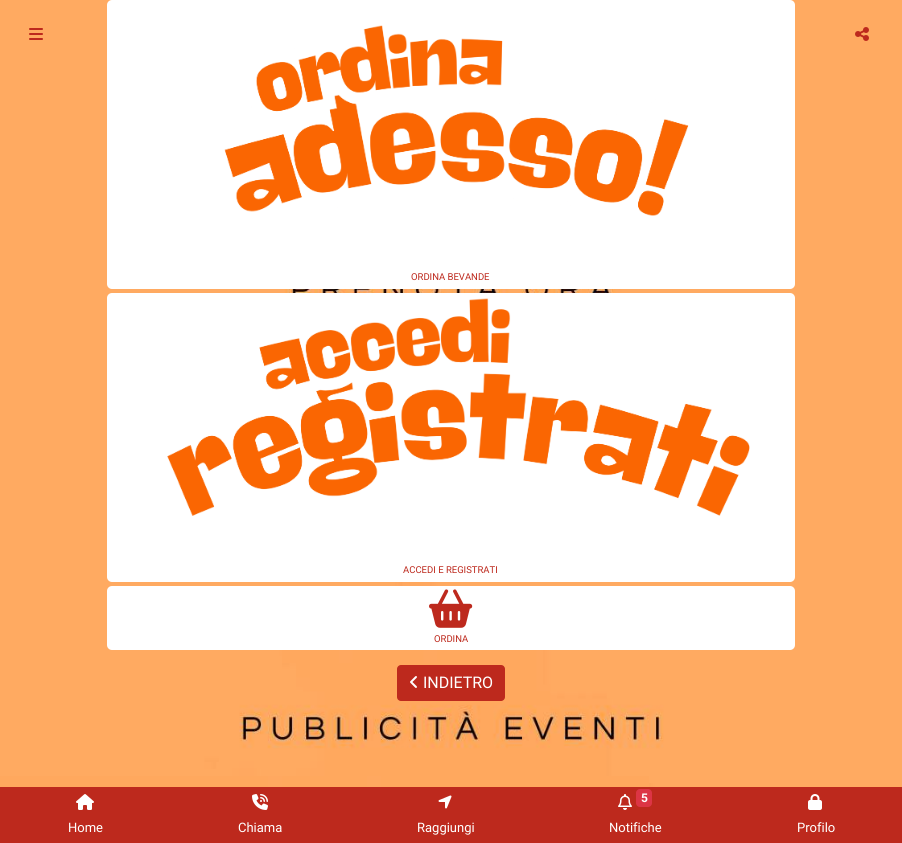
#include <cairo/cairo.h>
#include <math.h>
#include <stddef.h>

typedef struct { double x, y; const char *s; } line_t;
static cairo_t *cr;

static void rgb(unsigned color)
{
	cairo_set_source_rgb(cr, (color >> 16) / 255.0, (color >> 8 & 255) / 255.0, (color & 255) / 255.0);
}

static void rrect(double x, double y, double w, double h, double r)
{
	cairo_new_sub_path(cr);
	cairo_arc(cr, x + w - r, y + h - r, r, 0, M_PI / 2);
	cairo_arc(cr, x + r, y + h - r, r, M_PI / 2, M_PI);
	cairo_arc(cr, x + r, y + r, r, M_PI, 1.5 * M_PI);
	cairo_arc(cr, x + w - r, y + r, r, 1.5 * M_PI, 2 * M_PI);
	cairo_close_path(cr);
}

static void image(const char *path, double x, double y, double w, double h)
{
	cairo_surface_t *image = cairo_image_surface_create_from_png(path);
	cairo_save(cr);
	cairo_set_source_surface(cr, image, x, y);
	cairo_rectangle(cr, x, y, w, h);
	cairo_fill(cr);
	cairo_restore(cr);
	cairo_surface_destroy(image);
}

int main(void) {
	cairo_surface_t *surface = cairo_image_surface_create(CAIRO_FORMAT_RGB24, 902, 843);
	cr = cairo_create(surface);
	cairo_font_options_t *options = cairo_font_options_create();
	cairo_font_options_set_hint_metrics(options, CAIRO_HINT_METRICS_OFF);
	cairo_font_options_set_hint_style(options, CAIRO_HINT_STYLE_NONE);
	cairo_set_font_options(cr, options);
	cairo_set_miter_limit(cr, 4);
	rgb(0xffffff);
	cairo_paint(cr);
	image("img/1.png", 0, 0, 902, 787);
	image("img/2.png", 29, 28, 14, 12);
	image("img/3.png", 855, 27, 14, 14);
	rgb(0xffffff);
	rrect(107, 0, 688, 289, 5);
	cairo_fill(cr);
	image("img/4.png", 224, 25, 465, 191);
	rrect(107, 293, 688, 289, 5);
	cairo_fill(cr);
	image("img/5.png", 167, 298, 583, 218);
	rrect(107, 586, 688, 64, 5);
	cairo_fill(cr);
	image("img/6.png", 429, 589, 44, 39);
	rgb(0xbd291d);
	rrect(397, 665, 108, 36, 4);
	cairo_fill(cr);
	image("img/7.png", 410, 676, 7, 12);
	cairo_rectangle(cr, 0, 787, 902, 56);
	cairo_fill(cr);
	image("img/8.png", 76, 794, 18, 16);
	image("img/9.png", 252, 794, 16, 16);
	image("img/10.png", 438, 795, 14, 14);
	image("img/11.png", 618, 794, 14, 16);
	rgb(0xdc3545);
	rrect(636, 789, 16, 18, 4);
	cairo_fill(cr);
	image("img/12.png", 808, 794, 14, 16);
	cairo_select_font_face(cr, "Roboto", CAIRO_FONT_SLANT_NORMAL, CAIRO_FONT_WEIGHT_NORMAL);
	cairo_set_font_size(cr, 9.5);
	rgb(0xbd291d);
	{
		static const line_t items[] = {
			{411, 280, "ORDINA BEVANDE"},
			{403, 573, "ACCEDI E REGISTRATI"},
			{434, 642, "ORDINA"},
		};
		for (size_t i = 0; i < sizeof items / sizeof *items; i++) {
			cairo_move_to(cr, items[i].x, items[i].y);
			cairo_show_text(cr, items[i].s);
		}
	}
	cairo_set_font_size(cr, 16);
	rgb(0xffffff);
	cairo_move_to(cr, 423, 688);
	cairo_show_text(cr, "INDIETRO");
	cairo_set_font_size(cr, 13);
	{
		static const line_t items[] = {
			{68, 832, "Home"},
			{238, 832, "Chiama"},
			{417, 832, "Raggiungi"},
		};
		for (size_t i = 0; i < sizeof items / sizeof *items; i++) {
			cairo_move_to(cr, items[i].x, items[i].y);
			cairo_show_text(cr, items[i].s);
		}
	}
	cairo_select_font_face(cr, "Roboto", CAIRO_FONT_SLANT_NORMAL, CAIRO_FONT_WEIGHT_BOLD);
	cairo_set_font_size(cr, 12);
	cairo_move_to(cr, 641, 802);
	cairo_show_text(cr, "5");
	cairo_select_font_face(cr, "Roboto", CAIRO_FONT_SLANT_NORMAL, CAIRO_FONT_WEIGHT_NORMAL);
	cairo_set_font_size(cr, 13);
	cairo_move_to(cr, 609, 832);
	cairo_show_text(cr, "Notifiche");
	cairo_move_to(cr, 797, 832);
	cairo_show_text(cr, "Profilo");
	cairo_surface_write_to_png(surface, "page.png");
	cairo_font_options_destroy(options);
	cairo_destroy(cr);
	cairo_surface_destroy(surface);
	return 0;
}
